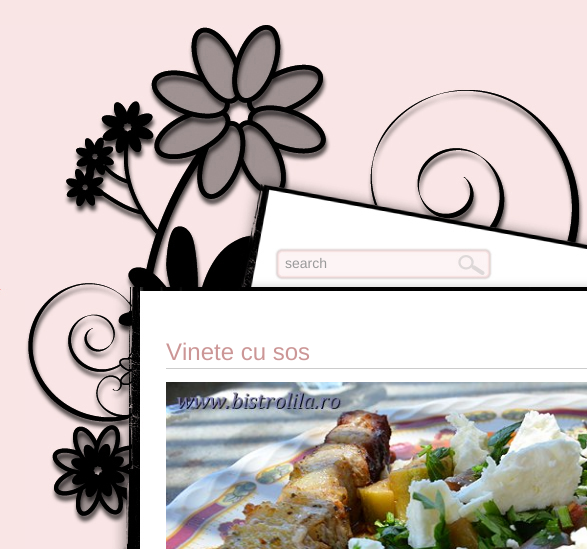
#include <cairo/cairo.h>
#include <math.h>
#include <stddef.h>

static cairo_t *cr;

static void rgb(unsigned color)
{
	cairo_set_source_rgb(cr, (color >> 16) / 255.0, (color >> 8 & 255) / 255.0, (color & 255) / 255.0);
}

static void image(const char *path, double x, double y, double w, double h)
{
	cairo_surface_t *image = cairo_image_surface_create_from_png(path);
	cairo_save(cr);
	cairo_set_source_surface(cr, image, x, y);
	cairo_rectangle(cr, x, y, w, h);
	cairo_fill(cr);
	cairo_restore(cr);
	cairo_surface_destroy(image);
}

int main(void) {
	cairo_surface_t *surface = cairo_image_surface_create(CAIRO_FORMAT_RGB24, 587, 549);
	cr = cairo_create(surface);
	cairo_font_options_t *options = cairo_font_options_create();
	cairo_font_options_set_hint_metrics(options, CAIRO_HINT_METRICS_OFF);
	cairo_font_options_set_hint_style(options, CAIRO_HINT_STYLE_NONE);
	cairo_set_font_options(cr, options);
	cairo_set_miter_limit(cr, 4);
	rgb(0xf9e5e5);
	cairo_paint(cr);
	image("img/1.png", 0, 25, 587, 275);
	image("img/2.png", 25, 300, 562, 249);
	image("img/3.png", 127, 300, 13, 247);
	rgb(0xcccccc);
	cairo_rectangle(cr, 166, 368, 421, 1);
	cairo_fill(cr);
	image("img/4.png", 166, 382, 421, 167);
	cairo_select_font_face(cr, "Liberation Sans", CAIRO_FONT_SLANT_NORMAL, CAIRO_FONT_WEIGHT_NORMAL);
	cairo_set_font_size(cr, 14);
	rgb(0x999999);
	cairo_move_to(cr, 285, 268);
	cairo_show_text(cr, "search");
	cairo_set_font_size(cr, 24);
	rgb(0xcc9696);
	cairo_move_to(cr, 166, 360);
	cairo_show_text(cr, "Vinete cu sos");
	cairo_surface_write_to_png(surface, "page.png");
	cairo_font_options_destroy(options);
	cairo_destroy(cr);
	cairo_surface_destroy(surface);
	return 0;
}
